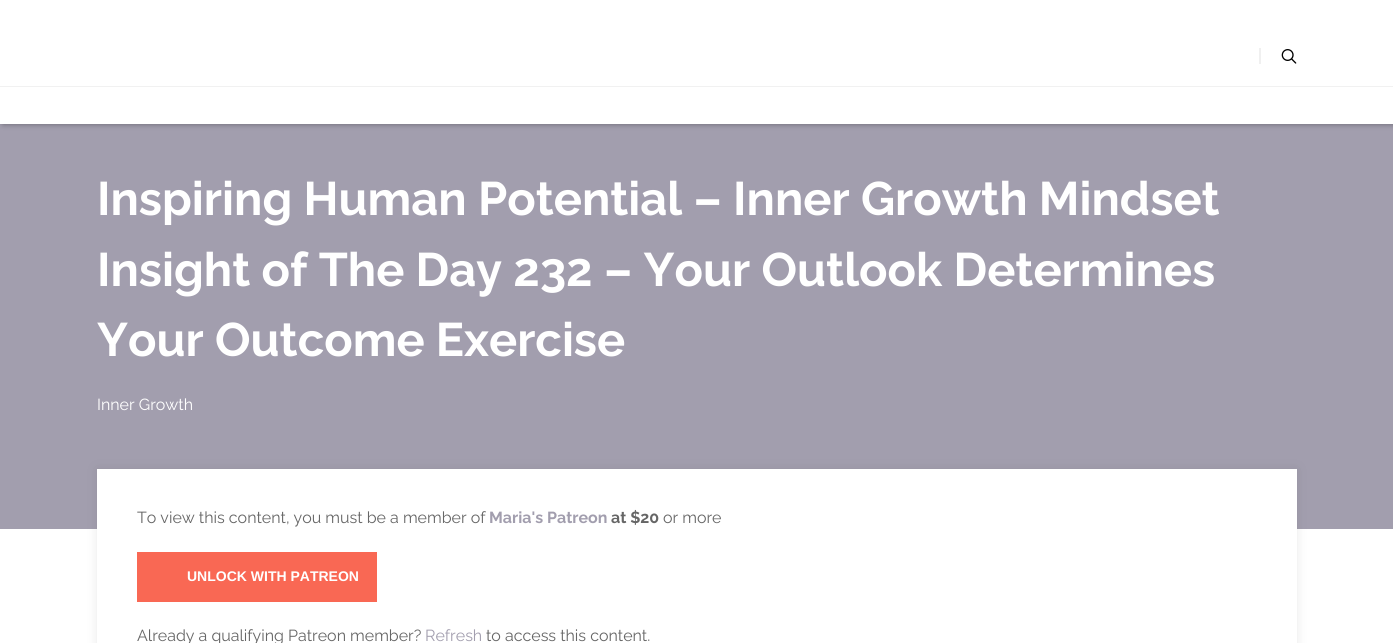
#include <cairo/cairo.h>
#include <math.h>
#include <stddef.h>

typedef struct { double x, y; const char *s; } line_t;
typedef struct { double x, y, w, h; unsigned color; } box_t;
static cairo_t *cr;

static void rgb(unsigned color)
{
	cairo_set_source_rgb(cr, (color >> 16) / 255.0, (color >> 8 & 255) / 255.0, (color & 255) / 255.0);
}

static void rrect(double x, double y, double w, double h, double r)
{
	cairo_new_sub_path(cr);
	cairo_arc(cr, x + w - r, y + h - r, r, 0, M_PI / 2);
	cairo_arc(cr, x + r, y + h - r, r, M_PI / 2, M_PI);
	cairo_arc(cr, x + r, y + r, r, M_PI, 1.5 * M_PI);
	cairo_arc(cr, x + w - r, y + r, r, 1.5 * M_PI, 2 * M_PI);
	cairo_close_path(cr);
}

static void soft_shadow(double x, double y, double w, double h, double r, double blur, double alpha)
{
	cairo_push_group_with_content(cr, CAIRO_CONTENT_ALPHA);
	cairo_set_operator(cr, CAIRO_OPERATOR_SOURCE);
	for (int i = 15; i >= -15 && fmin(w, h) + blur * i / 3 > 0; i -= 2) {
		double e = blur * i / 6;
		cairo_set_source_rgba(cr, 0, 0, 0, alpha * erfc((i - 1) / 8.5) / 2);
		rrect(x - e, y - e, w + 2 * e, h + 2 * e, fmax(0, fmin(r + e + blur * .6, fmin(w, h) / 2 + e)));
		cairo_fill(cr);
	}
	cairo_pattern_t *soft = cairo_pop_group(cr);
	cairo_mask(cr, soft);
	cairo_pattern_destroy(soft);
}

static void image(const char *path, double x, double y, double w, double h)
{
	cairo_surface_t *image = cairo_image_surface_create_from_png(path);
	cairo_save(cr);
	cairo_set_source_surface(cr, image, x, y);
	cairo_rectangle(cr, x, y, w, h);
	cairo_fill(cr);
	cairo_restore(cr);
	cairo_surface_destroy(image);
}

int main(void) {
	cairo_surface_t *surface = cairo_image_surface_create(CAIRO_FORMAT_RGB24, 1393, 643);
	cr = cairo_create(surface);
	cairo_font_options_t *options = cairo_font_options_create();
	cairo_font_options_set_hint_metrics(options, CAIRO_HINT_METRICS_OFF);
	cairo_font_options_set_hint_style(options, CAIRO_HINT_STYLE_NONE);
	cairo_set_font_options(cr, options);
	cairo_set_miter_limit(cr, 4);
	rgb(0xffffff);
	cairo_paint(cr);
	rgb(0xa29eae);
	cairo_rectangle(cr, 0, 124, 1393, 405);
	cairo_fill(cr);
	rgb(0x000000);
	soft_shadow(3, 0, 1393, 124, 0, 3, 0.37);
	{
		static const box_t items[] = {
			{0, 0, 1393, 124, 0xffffff},
			{0, 86, 1393, 1, 0xf1f1f1},
			{1259, 48, 2, 16, 0xf0f0f0},
		};
		for (size_t i = 0; i < sizeof items / sizeof *items; i++) {
			rgb(items[i].color);
			cairo_rectangle(cr, items[i].x, items[i].y, items[i].w, items[i].h);
			cairo_fill(cr);
		}
	}
	image("img/1.png", 1281, 49, 16, 15);
	rgb(0x323232);
	soft_shadow(97, 469, 1200, 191, 0, 5.5, 0.11);
	rgb(0xffffff);
	cairo_rectangle(cr, 97, 469, 1200, 174);
	cairo_fill(cr);
	rgb(0xf96854);
	cairo_rectangle(cr, 137, 552, 240, 50);
	cairo_fill(cr);
	cairo_select_font_face(cr, "Raleway", CAIRO_FONT_SLANT_NORMAL, CAIRO_FONT_WEIGHT_BOLD);
	cairo_set_font_size(cr, 47);
	rgb(0xffffff);
	{
		static const line_t items[] = {
			{97, 215, "Inspiring Human Potential – Inner Growth Mindset"},
			{97, 286, "Insight of The Day 232 – Your Outlook Determines"},
			{97, 356, "Your Outcome Exercise"},
		};
		for (size_t i = 0; i < sizeof items / sizeof *items; i++) {
			cairo_move_to(cr, items[i].x, items[i].y);
			cairo_show_text(cr, items[i].s);
		}
	}
	cairo_select_font_face(cr, "Raleway", CAIRO_FONT_SLANT_NORMAL, CAIRO_FONT_WEIGHT_NORMAL);
	cairo_set_font_size(cr, 16);
	cairo_move_to(cr, 97, 410);
	cairo_show_text(cr, "Inner Growth");
	rgb(0x666666);
	cairo_move_to(cr, 137, 523);
	cairo_show_text(cr, "To view this content, you must be a member of");
	cairo_select_font_face(cr, "Raleway", CAIRO_FONT_SLANT_NORMAL, CAIRO_FONT_WEIGHT_BOLD);
	rgb(0xa29eae);
	cairo_move_to(cr, 489, 523);
	cairo_show_text(cr, "Maria's Patreon");
	rgb(0x666666);
	cairo_move_to(cr, 611, 523);
	cairo_show_text(cr, "at $20");
	cairo_select_font_face(cr, "Raleway", CAIRO_FONT_SLANT_NORMAL, CAIRO_FONT_WEIGHT_NORMAL);
	cairo_move_to(cr, 663, 523);
	cairo_show_text(cr, "or more");
	cairo_select_font_face(cr, "Liberation Sans", CAIRO_FONT_SLANT_NORMAL, CAIRO_FONT_WEIGHT_BOLD);
	cairo_set_font_size(cr, 14);
	rgb(0xffffff);
	cairo_move_to(cr, 187, 581);
	cairo_show_text(cr, "UNLOCK WITH PATREON");
	cairo_select_font_face(cr, "Raleway", CAIRO_FONT_SLANT_NORMAL, CAIRO_FONT_WEIGHT_NORMAL);
	cairo_set_font_size(cr, 16);
	rgb(0x666666);
	cairo_move_to(cr, 137, 641);
	cairo_show_text(cr, "Already a qualifying Patreon member?");
	rgb(0xa29eae);
	cairo_move_to(cr, 425, 641);
	cairo_show_text(cr, "Refresh");
	rgb(0x666666);
	cairo_move_to(cr, 486, 641);
	cairo_show_text(cr, "to access this content.");
	cairo_surface_write_to_png(surface, "page.png");
	cairo_font_options_destroy(options);
	cairo_destroy(cr);
	cairo_surface_destroy(surface);
	return 0;
}
